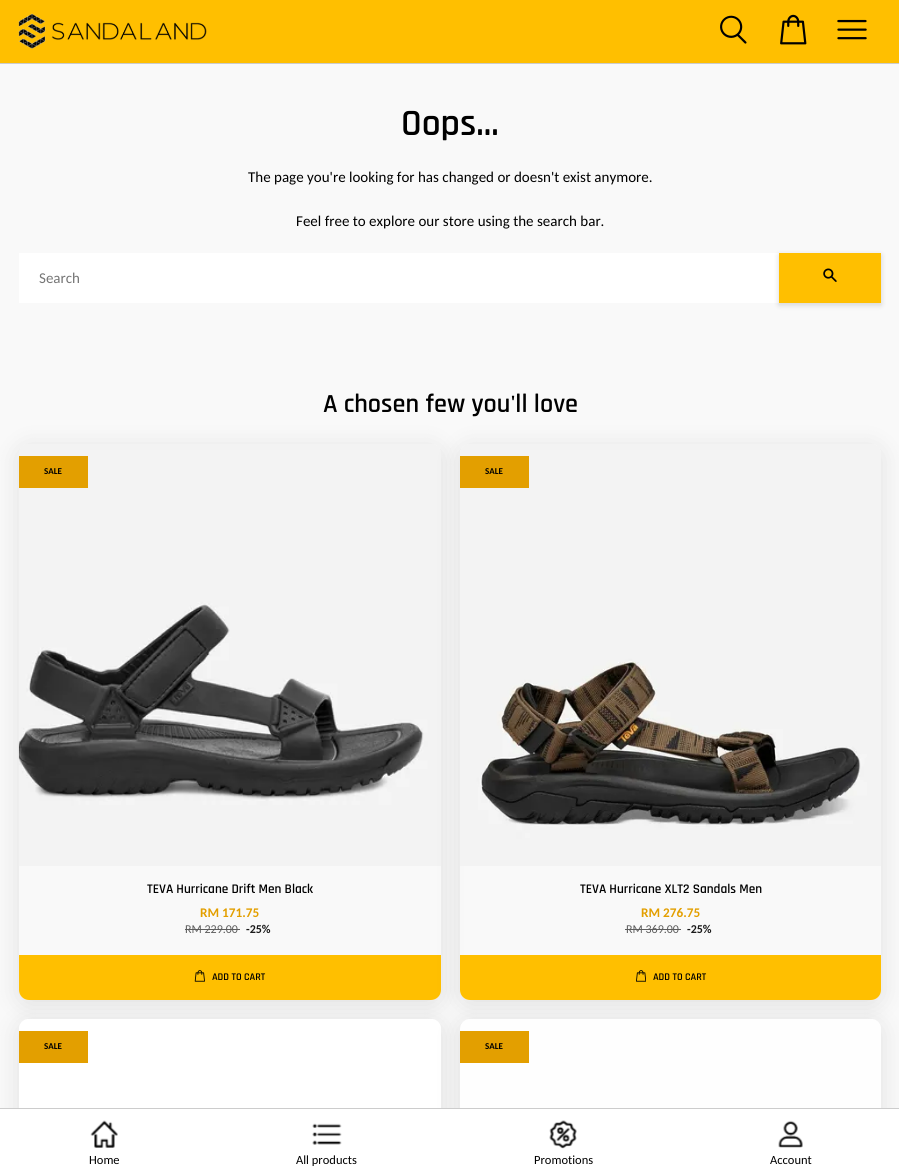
#include <cairo/cairo.h>
#include <math.h>
#include <stddef.h>

typedef struct { double x, y; const char *s; } line_t;
typedef struct { double x, y, w, h; unsigned color; } box_t;
static cairo_t *cr;

static void rgb(unsigned color)
{
	cairo_set_source_rgb(cr, (color >> 16) / 255.0, (color >> 8 & 255) / 255.0, (color & 255) / 255.0);
}

static void rrect(double x, double y, double w, double h, double r)
{
	cairo_new_sub_path(cr);
	cairo_arc(cr, x + w - r, y + h - r, r, 0, M_PI / 2);
	cairo_arc(cr, x + r, y + h - r, r, M_PI / 2, M_PI);
	cairo_arc(cr, x + r, y + r, r, M_PI, 1.5 * M_PI);
	cairo_arc(cr, x + w - r, y + r, r, 1.5 * M_PI, 2 * M_PI);
	cairo_close_path(cr);
}

static void soft_shadow(double x, double y, double w, double h, double r, double blur, double alpha)
{
	cairo_push_group_with_content(cr, CAIRO_CONTENT_ALPHA);
	cairo_set_operator(cr, CAIRO_OPERATOR_SOURCE);
	for (int i = 15; i >= -15 && fmin(w, h) + blur * i / 3 > 0; i -= 2) {
		double e = blur * i / 6;
		cairo_set_source_rgba(cr, 0, 0, 0, alpha * erfc((i - 1) / 8.5) / 2);
		rrect(x - e, y - e, w + 2 * e, h + 2 * e, fmax(0, fmin(r + e + blur * .6, fmin(w, h) / 2 + e)));
		cairo_fill(cr);
	}
	cairo_pattern_t *soft = cairo_pop_group(cr);
	cairo_mask(cr, soft);
	cairo_pattern_destroy(soft);
}

static void image(const char *path, double x, double y, double w, double h)
{
	cairo_surface_t *image = cairo_image_surface_create_from_png(path);
	cairo_save(cr);
	cairo_set_source_surface(cr, image, x, y);
	cairo_rectangle(cr, x, y, w, h);
	cairo_fill(cr);
	cairo_restore(cr);
	cairo_surface_destroy(image);
}

int main(void) {
	cairo_surface_t *surface = cairo_image_surface_create(CAIRO_FORMAT_RGB24, 899, 1176);
	cr = cairo_create(surface);
	cairo_font_options_t *options = cairo_font_options_create();
	cairo_font_options_set_hint_metrics(options, CAIRO_HINT_METRICS_OFF);
	cairo_font_options_set_hint_style(options, CAIRO_HINT_STYLE_NONE);
	cairo_set_font_options(cr, options);
	cairo_set_miter_limit(cr, 4);
	rgb(0xf9f9f9);
	cairo_paint(cr);
	rgb(0xffbf00);
	cairo_rectangle(cr, 0, 0, 899, 63);
	cairo_fill(cr);
	rgb(0xcccccc);
	cairo_rectangle(cr, 0, 63, 899, 1);
	cairo_fill(cr);
	image("img/1.png", 18, 13, 189, 36);
	image("img/2.png", 720, 15, 27, 29);
	image("img/3.png", 780, 14, 27, 31);
	image("img/4.png", 837, 19, 30, 21);
	rgb(0xffffff);
	cairo_rectangle(cr, 19, 253, 760, 50);
	cairo_fill(cr);
	rgb(0x000000);
	soft_shadow(779, 255, 102, 50, 0, 3, 0.15);
	rgb(0xffbf00);
	cairo_rectangle(cr, 779, 253, 102, 50);
	cairo_fill(cr);
	image("img/5.png", 823, 268, 14, 14);
	cairo_save(cr);
	cairo_set_fill_rule(cr, CAIRO_FILL_RULE_EVEN_ODD);
	cairo_new_path(cr);
	cairo_move_to(cr, 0, 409);
	cairo_line_to(cr, 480, 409);
	cairo_line_to(cr, 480, 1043);
	cairo_line_to(cr, 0, 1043);
	cairo_close_path(cr);
	cairo_move_to(cr, 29, 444);
	cairo_line_to(cr, 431, 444);
	cairo_curve_to(cr, 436.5, 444, 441, 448.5, 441, 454);
	cairo_line_to(cr, 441, 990);
	cairo_curve_to(cr, 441, 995.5, 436.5, 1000, 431, 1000);
	cairo_line_to(cr, 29, 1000);
	cairo_curve_to(cr, 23.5, 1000, 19, 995.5, 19, 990);
	cairo_line_to(cr, 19, 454);
	cairo_curve_to(cr, 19, 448.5, 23.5, 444, 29, 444);
	cairo_close_path(cr);
	cairo_clip(cr);
	rgb(0x000000);
	soft_shadow(19, 448, 422, 556, 10, 12.5, 0.1);
	cairo_restore(cr);
	image("img/6.png", 18, 444, 423, 422);
	rgb(0xe39f00);
	cairo_rectangle(cr, 19, 456, 69, 32);
	cairo_fill(cr);
	rgb(0x5d5d5d);
	cairo_rectangle(cr, 185, 929, 55, 1);
	cairo_fill(cr);
	rgb(0xffbf00);
	cairo_new_path(cr);
	cairo_move_to(cr, 19, 955);
	cairo_line_to(cr, 441, 955);
	cairo_line_to(cr, 441, 990);
	cairo_curve_to(cr, 441, 995.5, 436.5, 1000, 431, 1000);
	cairo_line_to(cr, 29, 1000);
	cairo_curve_to(cr, 23.5, 1000, 19, 995.5, 19, 990);
	cairo_close_path(cr);
	cairo_fill(cr);
	image("img/7.png", 194, 970, 11, 12);
	cairo_save(cr);
	cairo_set_fill_rule(cr, CAIRO_FILL_RULE_EVEN_ODD);
	cairo_new_path(cr);
	cairo_move_to(cr, 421, 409);
	cairo_line_to(cr, 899, 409);
	cairo_line_to(cr, 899, 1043);
	cairo_line_to(cr, 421, 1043);
	cairo_close_path(cr);
	cairo_move_to(cr, 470, 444);
	cairo_line_to(cr, 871, 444);
	cairo_curve_to(cr, 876.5, 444, 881, 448.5, 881, 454);
	cairo_line_to(cr, 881, 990);
	cairo_curve_to(cr, 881, 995.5, 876.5, 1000, 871, 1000);
	cairo_line_to(cr, 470, 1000);
	cairo_curve_to(cr, 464.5, 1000, 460, 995.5, 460, 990);
	cairo_line_to(cr, 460, 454);
	cairo_curve_to(cr, 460, 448.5, 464.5, 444, 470, 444);
	cairo_close_path(cr);
	cairo_clip(cr);
	rgb(0x000000);
	soft_shadow(460, 448, 421, 556, 10, 12.5, 0.1);
	cairo_restore(cr);
	image("img/8.png", 460, 444, 421, 422);
	rgb(0xe39f00);
	cairo_rectangle(cr, 460, 456, 69, 32);
	cairo_fill(cr);
	rgb(0x5d5d5d);
	cairo_rectangle(cr, 625, 929, 56, 1);
	cairo_fill(cr);
	rgb(0xffbf00);
	cairo_new_path(cr);
	cairo_move_to(cr, 460, 955);
	cairo_line_to(cr, 881, 955);
	cairo_line_to(cr, 881, 990);
	cairo_curve_to(cr, 881, 995.5, 876.5, 1000, 871, 1000);
	cairo_line_to(cr, 470, 1000);
	cairo_curve_to(cr, 464.5, 1000, 460, 995.5, 460, 990);
	cairo_close_path(cr);
	cairo_fill(cr);
	image("img/9.png", 636, 970, 10, 12);
	rgb(0x000000);
	soft_shadow(19, 1023, 422, 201, 10, 12.5, 0.1);
	image("img/10.png", 19, 1019, 422, 89);
	rgb(0xe39f00);
	cairo_rectangle(cr, 19, 1031, 69, 32);
	cairo_fill(cr);
	rgb(0x000000);
	soft_shadow(460, 1023, 421, 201, 10, 12.5, 0.1);
	image("img/11.png", 460, 1019, 421, 89);
	{
		static const box_t items[] = {
			{460, 1031, 69, 32, 0xe39f00},
			{0, 1109, 899, 67, 0xffffff},
			{0, 1108, 899, 1, 0xcccccc},
		};
		for (size_t i = 0; i < sizeof items / sizeof *items; i++) {
			rgb(items[i].color);
			cairo_rectangle(cr, items[i].x, items[i].y, items[i].w, items[i].h);
			cairo_fill(cr);
		}
	}
	image("img/12.png", 90, 1120, 28, 28);
	image("img/13.png", 312, 1123, 30, 22);
	image("img/14.png", 549, 1120, 28, 29);
	image("img/15.png", 778, 1120, 25, 28);
	cairo_select_font_face(cr, "Rajdhani SemiBold", CAIRO_FONT_SLANT_NORMAL, CAIRO_FONT_WEIGHT_NORMAL);
	cairo_set_font_size(cr, 37.5);
	rgb(0x000000);
	cairo_move_to(cr, 401, 135);
	cairo_show_text(cr, "Oops...");
	cairo_select_font_face(cr, "Carlito", CAIRO_FONT_SLANT_NORMAL, CAIRO_FONT_WEIGHT_NORMAL);
	cairo_set_font_size(cr, 15);
	cairo_move_to(cr, 248, 182);
	cairo_show_text(cr, "The page you're looking for has changed or doesn't exist anymore.");
	cairo_move_to(cr, 296, 226);
	cairo_show_text(cr, "Feel free to explore our store using the search bar.");
	rgb(0x757575);
	cairo_move_to(cr, 39, 283);
	cairo_show_text(cr, "Search");
	cairo_select_font_face(cr, "Rajdhani SemiBold", CAIRO_FONT_SLANT_NORMAL, CAIRO_FONT_WEIGHT_NORMAL);
	cairo_set_font_size(cr, 26.25);
	rgb(0x000000);
	cairo_move_to(cr, 323, 412);
	cairo_show_text(cr, "A chosen few you'll love");
	cairo_select_font_face(cr, "Carlito", CAIRO_FONT_SLANT_NORMAL, CAIRO_FONT_WEIGHT_BOLD);
	cairo_set_font_size(cr, 9);
	cairo_move_to(cr, 44, 474);
	cairo_show_text(cr, "SALE");
	cairo_select_font_face(cr, "Rajdhani SemiBold", CAIRO_FONT_SLANT_NORMAL, CAIRO_FONT_WEIGHT_NORMAL);
	cairo_set_font_size(cr, 13.25);
	cairo_move_to(cr, 147, 893);
	cairo_show_text(cr, "TEVA Hurricane Drift Men Black");
	cairo_select_font_face(cr, "Carlito", CAIRO_FONT_SLANT_NORMAL, CAIRO_FONT_WEIGHT_BOLD);
	rgb(0xe39f00);
	cairo_move_to(cr, 200, 917);
	cairo_show_text(cr, "RM 171.75");
	cairo_select_font_face(cr, "Carlito", CAIRO_FONT_SLANT_NORMAL, CAIRO_FONT_WEIGHT_NORMAL);
	cairo_set_font_size(cr, 12);
	rgb(0x5d5d5d);
	cairo_move_to(cr, 185, 933);
	cairo_show_text(cr, "RM 229.00");
	cairo_select_font_face(cr, "Carlito", CAIRO_FONT_SLANT_NORMAL, CAIRO_FONT_WEIGHT_BOLD);
	rgb(0x1a1a1a);
	cairo_move_to(cr, 246, 933);
	cairo_show_text(cr, "-25%");
	cairo_select_font_face(cr, "Rajdhani SemiBold", CAIRO_FONT_SLANT_NORMAL, CAIRO_FONT_WEIGHT_NORMAL);
	cairo_set_font_size(cr, 10.25);
	rgb(0x000000);
	cairo_move_to(cr, 212, 980);
	cairo_show_text(cr, "ADD TO CART");
	cairo_select_font_face(cr, "Carlito", CAIRO_FONT_SLANT_NORMAL, CAIRO_FONT_WEIGHT_BOLD);
	cairo_set_font_size(cr, 9);
	cairo_move_to(cr, 485, 474);
	cairo_show_text(cr, "SALE");
	cairo_select_font_face(cr, "Rajdhani SemiBold", CAIRO_FONT_SLANT_NORMAL, CAIRO_FONT_WEIGHT_NORMAL);
	cairo_set_font_size(cr, 13.25);
	cairo_move_to(cr, 580, 893);
	cairo_show_text(cr, "TEVA Hurricane XLT2 Sandals Men");
	cairo_select_font_face(cr, "Carlito", CAIRO_FONT_SLANT_NORMAL, CAIRO_FONT_WEIGHT_BOLD);
	rgb(0xe39f00);
	cairo_move_to(cr, 641, 917);
	cairo_show_text(cr, "RM 276.75");
	cairo_select_font_face(cr, "Carlito", CAIRO_FONT_SLANT_NORMAL, CAIRO_FONT_WEIGHT_NORMAL);
	cairo_set_font_size(cr, 12);
	rgb(0x5d5d5d);
	cairo_move_to(cr, 626, 933);
	cairo_show_text(cr, "RM 369.00");
	cairo_select_font_face(cr, "Carlito", CAIRO_FONT_SLANT_NORMAL, CAIRO_FONT_WEIGHT_BOLD);
	rgb(0x1a1a1a);
	cairo_move_to(cr, 687, 933);
	cairo_show_text(cr, "-25%");
	cairo_select_font_face(cr, "Rajdhani SemiBold", CAIRO_FONT_SLANT_NORMAL, CAIRO_FONT_WEIGHT_NORMAL);
	cairo_set_font_size(cr, 10.25);
	rgb(0x000000);
	cairo_move_to(cr, 653, 980);
	cairo_show_text(cr, "ADD TO CART");
	cairo_select_font_face(cr, "Carlito", CAIRO_FONT_SLANT_NORMAL, CAIRO_FONT_WEIGHT_BOLD);
	cairo_set_font_size(cr, 9);
	cairo_move_to(cr, 44, 1049);
	cairo_show_text(cr, "SALE");
	cairo_move_to(cr, 485, 1049);
	cairo_show_text(cr, "SALE");
	cairo_select_font_face(cr, "Carlito", CAIRO_FONT_SLANT_NORMAL, CAIRO_FONT_WEIGHT_NORMAL);
	cairo_set_font_size(cr, 12.5);
	{
		static const line_t items[] = {
			{89, 1164, "Home"},
			{296, 1164, "All products"},
			{534, 1164, "Promotions"},
			{770, 1164, "Account"},
		};
		for (size_t i = 0; i < sizeof items / sizeof *items; i++) {
			cairo_move_to(cr, items[i].x, items[i].y);
			cairo_show_text(cr, items[i].s);
		}
	}
	cairo_surface_write_to_png(surface, "page.png");
	cairo_font_options_destroy(options);
	cairo_destroy(cr);
	cairo_surface_destroy(surface);
	return 0;
}
